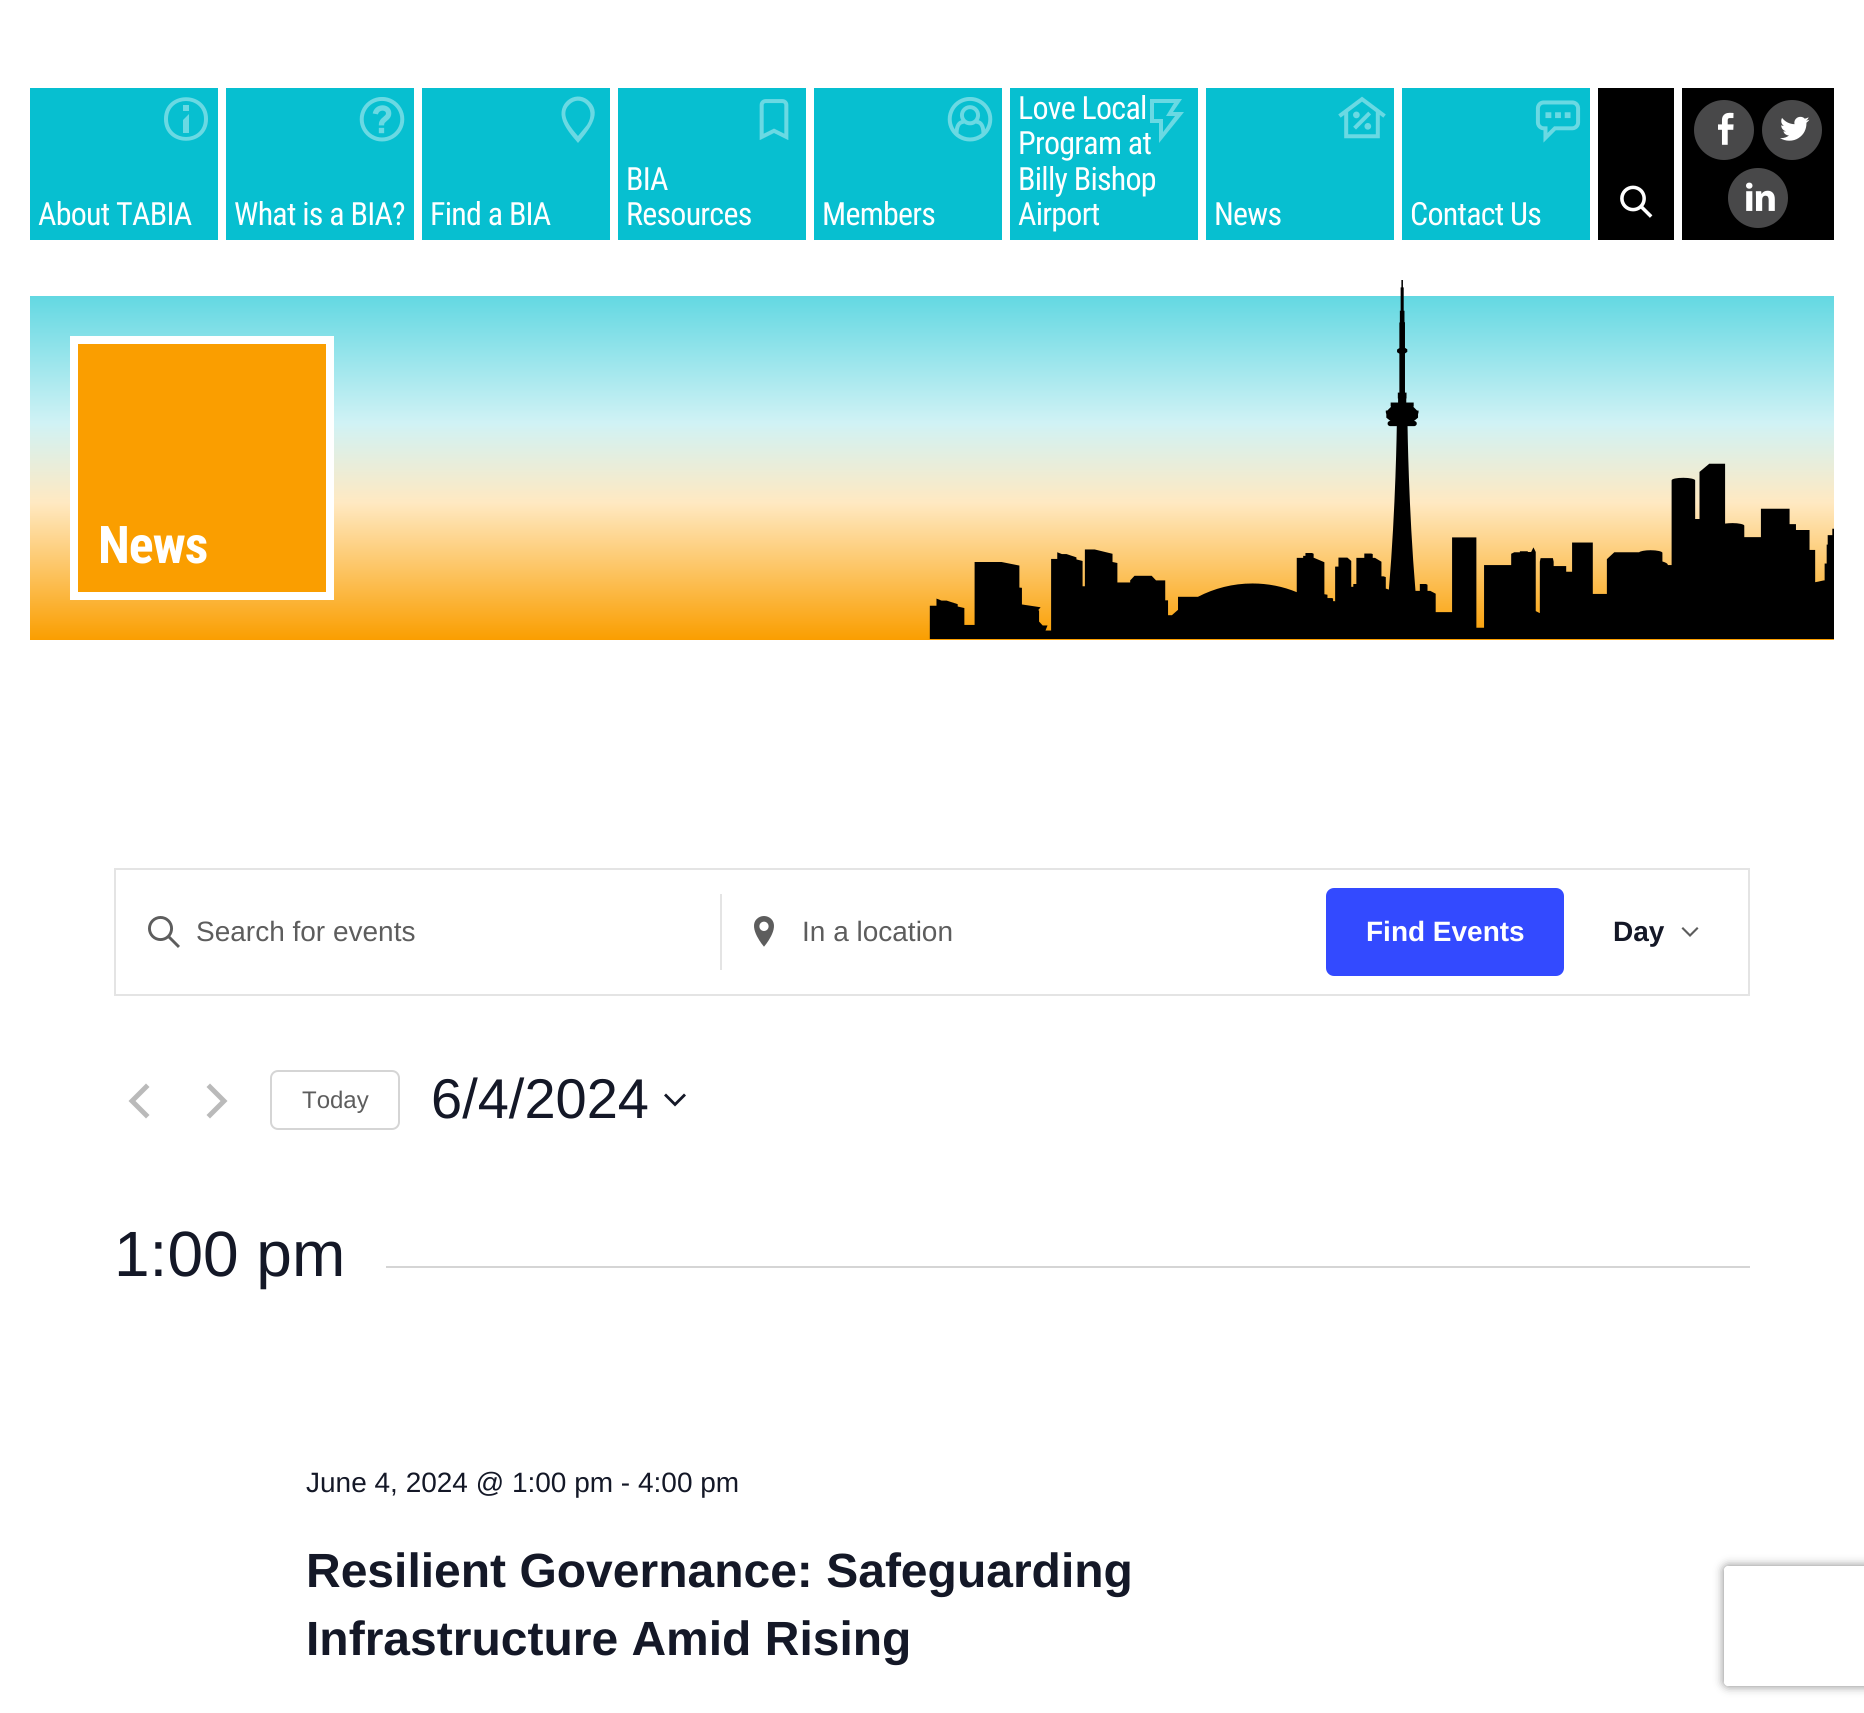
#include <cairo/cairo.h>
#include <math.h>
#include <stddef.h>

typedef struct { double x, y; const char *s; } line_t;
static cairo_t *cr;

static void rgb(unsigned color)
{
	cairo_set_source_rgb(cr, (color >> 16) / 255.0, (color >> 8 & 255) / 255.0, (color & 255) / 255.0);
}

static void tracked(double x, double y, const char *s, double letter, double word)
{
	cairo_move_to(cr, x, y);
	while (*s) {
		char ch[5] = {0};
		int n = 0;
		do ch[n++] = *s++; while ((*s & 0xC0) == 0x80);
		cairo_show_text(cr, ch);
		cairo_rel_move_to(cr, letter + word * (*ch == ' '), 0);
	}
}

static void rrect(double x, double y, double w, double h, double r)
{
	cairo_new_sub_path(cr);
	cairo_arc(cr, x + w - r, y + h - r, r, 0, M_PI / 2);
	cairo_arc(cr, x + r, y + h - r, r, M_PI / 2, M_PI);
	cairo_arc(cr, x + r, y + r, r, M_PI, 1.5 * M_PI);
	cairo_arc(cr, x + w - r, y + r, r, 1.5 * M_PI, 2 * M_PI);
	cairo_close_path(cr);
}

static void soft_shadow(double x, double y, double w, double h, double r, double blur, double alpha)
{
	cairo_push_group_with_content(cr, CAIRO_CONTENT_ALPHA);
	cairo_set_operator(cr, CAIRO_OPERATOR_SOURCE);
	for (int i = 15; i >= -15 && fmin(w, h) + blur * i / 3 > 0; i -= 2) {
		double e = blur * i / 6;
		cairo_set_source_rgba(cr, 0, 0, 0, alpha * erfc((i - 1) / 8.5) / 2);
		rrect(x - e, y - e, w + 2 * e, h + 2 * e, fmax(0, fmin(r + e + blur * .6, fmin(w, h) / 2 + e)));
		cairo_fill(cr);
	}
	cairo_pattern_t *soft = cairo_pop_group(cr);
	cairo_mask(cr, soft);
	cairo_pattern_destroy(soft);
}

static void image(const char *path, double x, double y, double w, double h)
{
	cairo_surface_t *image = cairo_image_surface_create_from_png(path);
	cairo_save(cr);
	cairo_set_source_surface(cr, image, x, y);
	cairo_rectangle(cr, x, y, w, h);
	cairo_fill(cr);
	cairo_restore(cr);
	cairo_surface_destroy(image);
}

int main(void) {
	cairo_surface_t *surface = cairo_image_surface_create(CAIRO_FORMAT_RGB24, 1864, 1713);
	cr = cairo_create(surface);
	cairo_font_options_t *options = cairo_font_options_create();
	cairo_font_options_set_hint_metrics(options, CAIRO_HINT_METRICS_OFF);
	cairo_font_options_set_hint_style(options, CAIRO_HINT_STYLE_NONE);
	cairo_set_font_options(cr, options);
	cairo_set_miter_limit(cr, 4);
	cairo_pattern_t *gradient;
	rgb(0xffffff);
	cairo_paint(cr);
	rgb(0x07bfd0);
	cairo_rectangle(cr, 30, 88, 188, 152);
	cairo_fill(cr);
	rgb(0x6ad9e3);
	cairo_new_path(cr);
	cairo_move_to(cr, 183, 120);
	cairo_line_to(cr, 189, 114);
	cairo_line_to(cr, 189, 133);
	cairo_line_to(cr, 183, 133);
	cairo_close_path(cr);
	cairo_move_to(cr, 208, 119);
	cairo_curve_to(cr, 208, 148, 164, 148, 164, 119);
	cairo_curve_to(cr, 164, 90, 208, 90, 208, 119);
	cairo_close_path(cr);
	cairo_move_to(cr, 204, 119);
	cairo_curve_to(cr, 204, 95, 168, 95, 168, 119);
	cairo_curve_to(cr, 168, 143, 204, 143, 204, 119);
	cairo_close_path(cr);
	cairo_move_to(cr, 183, 111);
	cairo_line_to(cr, 189, 111);
	cairo_line_to(cr, 189, 105);
	cairo_line_to(cr, 183, 105);
	cairo_close_path(cr);
	cairo_fill(cr);
	rgb(0x07bfd0);
	cairo_rectangle(cr, 226, 88, 188, 152);
	cairo_fill(cr);
	image("img/1.png", 359, 97, 46, 45);
	cairo_rectangle(cr, 422, 88, 188, 152);
	cairo_fill(cr);
	rgb(0x6ad9e3);
	cairo_new_path(cr);
	cairo_move_to(cr, 590, 102);
	cairo_curve_to(cr, 578, 89, 558, 101, 562, 118);
	cairo_curve_to(cr, 564, 127, 572, 136, 578, 143);
	cairo_curve_to(cr, 586, 133, 603, 115, 590, 102);
	cairo_close_path(cr);
	cairo_move_to(cr, 587, 125);
	cairo_line_to(cr, 578, 136);
	cairo_curve_to(cr, 572, 129, 559, 115, 569, 105);
	cairo_curve_to(cr, 580, 93, 598, 108, 587, 125);
	cairo_close_path(cr);
	cairo_fill(cr);
	rgb(0x07bfd0);
	cairo_rectangle(cr, 618, 88, 188, 152);
	cairo_fill(cr);
	image("img/2.png", 759, 99, 30, 41);
	cairo_rectangle(cr, 814, 88, 188, 152);
	cairo_fill(cr);
	image("img/3.png", 947, 97, 46, 45);
	cairo_rectangle(cr, 1010, 88, 188, 152);
	cairo_fill(cr);
	cairo_rectangle(cr, 1206, 88, 188, 152);
	cairo_fill(cr);
	image("img/4.png", 1338, 96, 48, 43);
	cairo_rectangle(cr, 1402, 88, 188, 152);
	cairo_fill(cr);
	image("img/5.png", 1535, 100, 46, 43);
	rgb(0x000000);
	cairo_rectangle(cr, 1598, 88, 76, 152);
	cairo_fill(cr);
	image("img/6.png", 1620, 185, 33, 33);
	cairo_rectangle(cr, 1682, 88, 152, 152);
	cairo_fill(cr);
	rgb(0x484849);
	cairo_arc(cr, 1724, 130, 30, 0, 2 * M_PI);
	cairo_fill(cr);
	image("img/7.png", 1718, 112, 16, 33);
	cairo_arc(cr, 1792, 130, 30, 0, 2 * M_PI);
	cairo_fill(cr);
	image("img/8.png", 1780, 116, 30, 25);
	cairo_arc(cr, 1758, 198, 30, 0, 2 * M_PI);
	cairo_fill(cr);
	image("img/9.png", 1746, 182, 29, 29);
	gradient = cairo_pattern_create_linear(932, 296, 932, 640);
	cairo_pattern_add_color_stop_rgba(gradient, 0, 0.388, 0.847, 0.886, 1);
	cairo_pattern_add_color_stop_rgba(gradient, 0.37, 0.816, 0.949, 0.961, 1);
	cairo_pattern_add_color_stop_rgba(gradient, 0.6, 1, 0.914, 0.761, 1);
	cairo_pattern_add_color_stop_rgba(gradient, 1, 0.98, 0.62, 0, 1);
	cairo_set_source(cr, gradient);
	cairo_pattern_destroy(gradient);
	cairo_rectangle(cr, 30, 296, 1804, 344);
	cairo_fill(cr);
	image("img/10.png", 929, 280, 905, 359);
	rgb(0xfa9e00);
	cairo_rectangle(cr, 74, 340, 256, 256);
	cairo_fill_preserve(cr);
	rgb(0xffffff);
	cairo_set_line_width(cr, 8);
	cairo_stroke(cr);
	cairo_rectangle(cr, 115, 869, 1634, 126);
	rgb(0xe4e4e4);
	cairo_set_line_width(cr, 2);
	cairo_stroke(cr);
	cairo_rectangle(cr, 720, 894, 2, 76);
	cairo_fill(cr);
	image("img/11.png", 148, 916, 32, 32);
	image("img/12.png", 754, 916, 20, 31);
	rgb(0x334aff);
	rrect(1326, 888, 238, 88, 8);
	cairo_fill(cr);
	rgb(0x5d5d5d);
	cairo_set_fill_rule(cr, CAIRO_FILL_RULE_EVEN_ODD);
	cairo_new_path(cr);
	cairo_move_to(cr, 1683, 927);
	cairo_line_to(cr, 1690, 934);
	cairo_line_to(cr, 1697, 927);
	cairo_line_to(cr, 1698.5, 928.5);
	cairo_line_to(cr, 1690, 937);
	cairo_line_to(cr, 1681.5, 928.5);
	cairo_close_path(cr);
	cairo_fill(cr);
	rgb(0xbababa);
	cairo_set_fill_rule(cr, CAIRO_FILL_RULE_WINDING);
	cairo_new_path(cr);
	cairo_move_to(cr, 149.5, 1115);
	cairo_line_to(cr, 146, 1118.5);
	cairo_line_to(cr, 128.5, 1101);
	cairo_line_to(cr, 146, 1083.5);
	cairo_line_to(cr, 149.5, 1087);
	cairo_line_to(cr, 135.5, 1101);
	cairo_close_path(cr);
	cairo_fill(cr);
	cairo_new_path(cr);
	cairo_move_to(cr, 206.5, 1087);
	cairo_line_to(cr, 210, 1083.5);
	cairo_line_to(cr, 227.5, 1101);
	cairo_line_to(cr, 210, 1118.5);
	cairo_line_to(cr, 206.5, 1115);
	cairo_line_to(cr, 220.5, 1101);
	cairo_close_path(cr);
	cairo_fill(cr);
	rrect(271, 1071, 128, 58, 7);
	rgb(0xd5d5d5);
	cairo_stroke(cr);
	rgb(0x141827);
	cairo_set_fill_rule(cr, CAIRO_FILL_RULE_EVEN_ODD);
	cairo_new_path(cr);
	cairo_move_to(cr, 666, 1093.5);
	cairo_line_to(cr, 675, 1102.5);
	cairo_line_to(cr, 684, 1093.5);
	cairo_line_to(cr, 686, 1095.5);
	cairo_line_to(cr, 675, 1106.5);
	cairo_line_to(cr, 664, 1095.5);
	cairo_close_path(cr);
	cairo_fill(cr);
	rgb(0xd5d5d5);
	cairo_rectangle(cr, 386, 1266, 1364, 2);
	cairo_fill(cr);
	cairo_save(cr);
	cairo_new_path(cr);
	cairo_move_to(cr, 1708, 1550);
	cairo_line_to(cr, 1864, 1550);
	cairo_line_to(cr, 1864, 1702);
	cairo_line_to(cr, 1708, 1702);
	cairo_close_path(cr);
	cairo_move_to(cr, 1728, 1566);
	cairo_line_to(cr, 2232, 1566);
	cairo_curve_to(cr, 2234, 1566, 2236, 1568, 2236, 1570);
	cairo_line_to(cr, 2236, 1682);
	cairo_curve_to(cr, 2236, 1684, 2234, 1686, 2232, 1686);
	cairo_line_to(cr, 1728, 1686);
	cairo_curve_to(cr, 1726, 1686, 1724, 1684, 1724, 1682);
	cairo_line_to(cr, 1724, 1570);
	cairo_curve_to(cr, 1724, 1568, 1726, 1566, 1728, 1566);
	cairo_close_path(cr);
	cairo_clip(cr);
	rgb(0x808080);
	soft_shadow(1724, 1566, 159, 120, 4, 5, 1);
	cairo_restore(cr);
	cairo_select_font_face(cr, "Roboto Condensed", CAIRO_FONT_SLANT_NORMAL, CAIRO_FONT_WEIGHT_NORMAL);
	cairo_set_font_size(cr, 32);
	rgb(0xffffff);
	{
		static const line_t items[] = {
			{38, 225, "About TABIA"},
			{234, 225, "What is a BIA?"},
			{430, 225, "Find a BIA"},
			{626, 190, "BIA"},
			{626, 225, "Resources"},
			{822, 225, "Members"},
			{1018, 119, "Love Local"},
			{1018, 154, "Program at"},
			{1018, 190, "Billy Bishop"},
			{1018, 225, "Airport"},
		};
		for (size_t i = 0; i < sizeof items / sizeof *items; i++) {
			tracked(items[i].x, items[i].y, items[i].s, -0.75, 0);
		}
	}
	rgb(0x6ad9e3);
	cairo_set_fill_rule(cr, CAIRO_FILL_RULE_WINDING);
	cairo_new_path(cr);
	cairo_move_to(cr, 1184, 112);
	cairo_line_to(cr, 1173, 112);
	cairo_line_to(cr, 1182, 99);
	cairo_line_to(cr, 1150, 99);
	cairo_line_to(cr, 1150, 123);
	cairo_line_to(cr, 1159, 123);
	cairo_line_to(cr, 1159, 143);
	cairo_close_path(cr);
	cairo_move_to(cr, 1154, 119);
	cairo_line_to(cr, 1154, 103);
	cairo_line_to(cr, 1174, 103);
	cairo_line_to(cr, 1166, 116);
	cairo_line_to(cr, 1175, 116);
	cairo_line_to(cr, 1163, 132);
	cairo_line_to(cr, 1163, 119);
	cairo_close_path(cr);
	cairo_fill(cr);
	rgb(0xffffff);
	tracked(1214, 225, "News", -0.75, 0);
	tracked(1410, 225, "Contact Us", -0.75, 0);
	cairo_select_font_face(cr, "Roboto Condensed", CAIRO_FONT_SLANT_NORMAL, CAIRO_FONT_WEIGHT_BOLD);
	cairo_set_font_size(cr, 52);
	tracked(98, 563, "News", -1, 0);
	cairo_select_font_face(cr, "Liberation Sans", CAIRO_FONT_SLANT_NORMAL, CAIRO_FONT_WEIGHT_NORMAL);
	cairo_set_font_size(cr, 28);
	rgb(0x5d5d5d);
	cairo_move_to(cr, 196, 941);
	cairo_show_text(cr, "Search for events");
	cairo_move_to(cr, 802, 941);
	cairo_show_text(cr, "In a location");
	cairo_select_font_face(cr, "Liberation Sans", CAIRO_FONT_SLANT_NORMAL, CAIRO_FONT_WEIGHT_BOLD);
	rgb(0xffffff);
	cairo_move_to(cr, 1366, 941);
	cairo_show_text(cr, "Find Events");
	rgb(0x141827);
	cairo_move_to(cr, 1613, 941);
	cairo_show_text(cr, "Day");
	cairo_select_font_face(cr, "Liberation Sans", CAIRO_FONT_SLANT_NORMAL, CAIRO_FONT_WEIGHT_NORMAL);
	cairo_set_font_size(cr, 24);
	rgb(0x5d5d5d);
	cairo_move_to(cr, 302, 1108);
	cairo_show_text(cr, "Today");
	cairo_set_font_size(cr, 56);
	rgb(0x141827);
	cairo_move_to(cr, 431, 1118);
	cairo_show_text(cr, "6/4/2024");
	cairo_set_font_size(cr, 64);
	cairo_move_to(cr, 114, 1276);
	cairo_show_text(cr, "1:00 pm");
	cairo_set_font_size(cr, 28);
	cairo_move_to(cr, 306, 1492);
	cairo_show_text(cr, "June 4, 2024 @ 1:00 pm - 4:00 pm");
	cairo_select_font_face(cr, "Liberation Sans", CAIRO_FONT_SLANT_NORMAL, CAIRO_FONT_WEIGHT_BOLD);
	cairo_set_font_size(cr, 48);
	cairo_move_to(cr, 306, 1587);
	cairo_show_text(cr, "Resilient Governance: Safeguarding");
	cairo_move_to(cr, 306, 1655);
	cairo_show_text(cr, "Infrastructure Amid Rising");
	cairo_surface_write_to_png(surface, "page.png");
	cairo_font_options_destroy(options);
	cairo_destroy(cr);
	cairo_surface_destroy(surface);
	return 0;
}
